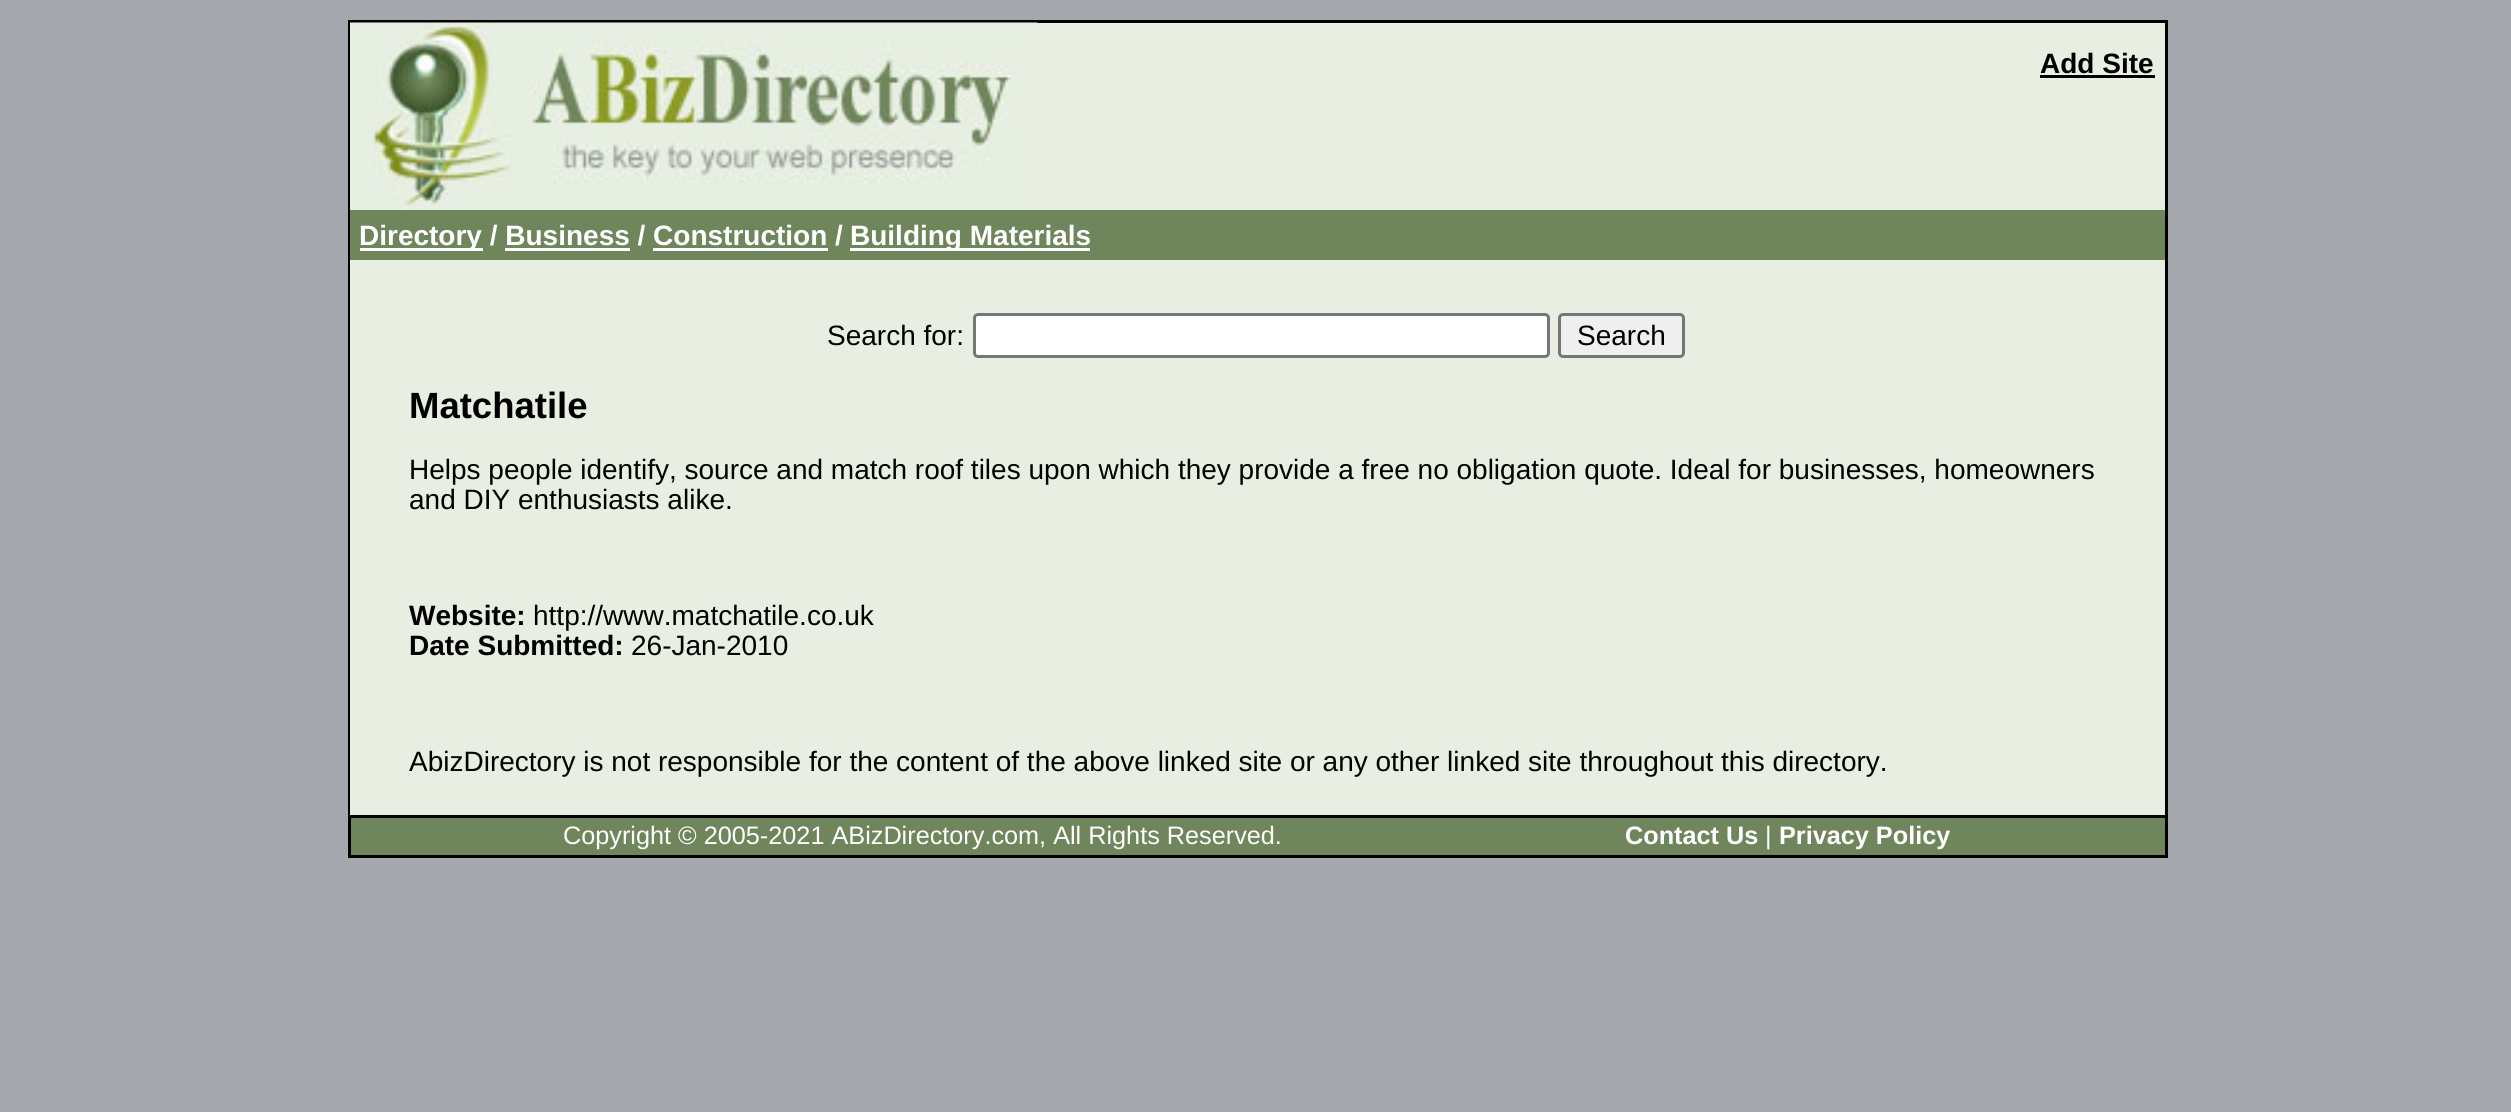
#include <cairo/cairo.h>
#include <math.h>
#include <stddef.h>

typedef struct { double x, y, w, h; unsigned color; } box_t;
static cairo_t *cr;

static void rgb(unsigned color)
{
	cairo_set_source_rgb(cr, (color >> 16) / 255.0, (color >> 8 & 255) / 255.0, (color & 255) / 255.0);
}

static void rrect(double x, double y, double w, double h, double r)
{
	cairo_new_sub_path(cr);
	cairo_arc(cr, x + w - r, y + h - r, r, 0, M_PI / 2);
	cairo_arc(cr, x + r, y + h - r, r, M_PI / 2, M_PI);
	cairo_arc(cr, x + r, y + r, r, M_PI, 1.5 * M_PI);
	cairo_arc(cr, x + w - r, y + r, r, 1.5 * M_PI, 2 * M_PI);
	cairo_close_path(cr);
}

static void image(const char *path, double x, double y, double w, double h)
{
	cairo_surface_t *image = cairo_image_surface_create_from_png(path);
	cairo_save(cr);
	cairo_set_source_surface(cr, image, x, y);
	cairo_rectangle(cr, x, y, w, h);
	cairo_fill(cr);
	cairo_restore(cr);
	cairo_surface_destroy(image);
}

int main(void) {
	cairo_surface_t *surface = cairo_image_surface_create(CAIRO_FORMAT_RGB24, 2511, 1112);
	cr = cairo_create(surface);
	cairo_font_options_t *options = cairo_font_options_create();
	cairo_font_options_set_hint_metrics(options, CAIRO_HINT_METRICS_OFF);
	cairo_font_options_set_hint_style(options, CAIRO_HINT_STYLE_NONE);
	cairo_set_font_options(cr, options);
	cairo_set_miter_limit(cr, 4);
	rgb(0xa4a8ac);
	cairo_paint(cr);
	cairo_rectangle(cr, 349.5, 21.5, 1817, 795);
	rgb(0x000000);
	cairo_set_line_width(cr, 3);
	cairo_stroke(cr);
	rgb(0xe8efe2);
	cairo_rectangle(cr, 1037, 23, 1128, 187);
	cairo_fill(cr);
	image("img/1.png", 350, 22, 688, 188);
	{
		static const box_t items[] = {
			{2040, 75, 115, 3, 0x000000},
			{350, 260, 1815, 555, 0xe8efe2},
			{350, 210, 1815, 50, 0x6f865c},
			{360, 248, 123, 3, 0xffffff},
			{850, 248, 240, 3, 0xffffff},
			{505, 248, 125, 3, 0xffffff},
			{653, 248, 175, 3, 0xffffff},
		};
		for (size_t i = 0; i < sizeof items / sizeof *items; i++) {
			rgb(items[i].color);
			cairo_rectangle(cr, items[i].x, items[i].y, items[i].w, items[i].h);
			cairo_fill(cr);
		}
	}
	rrect(974.5, 314.5, 574, 42, 3.5);
	cairo_fill_preserve(cr);
	rgb(0x767676);
	cairo_stroke(cr);
	rgb(0xefefef);
	rrect(1559.5, 314.5, 124, 42, 3.5);
	cairo_fill_preserve(cr);
	rgb(0x767676);
	cairo_stroke(cr);
	{
		static const box_t items[] = {
			{351, 818, 1814, 37, 0x6f865c},
			{2165, 818, 3, 40, 0x000000},
			{348, 855, 1820, 3, 0x000000},
			{348, 818, 3, 40, 0x000000},
		};
		for (size_t i = 0; i < sizeof items / sizeof *items; i++) {
			rgb(items[i].color);
			cairo_rectangle(cr, items[i].x, items[i].y, items[i].w, items[i].h);
			cairo_fill(cr);
		}
	}
	cairo_select_font_face(cr, "Liberation Sans", CAIRO_FONT_SLANT_NORMAL, CAIRO_FONT_WEIGHT_BOLD);
	cairo_set_font_size(cr, 28);
	cairo_move_to(cr, 2040, 73);
	cairo_show_text(cr, "Add Site");
	rgb(0xffffff);
	cairo_move_to(cr, 359, 245);
	cairo_show_text(cr, "Directory / Business / Construction /");
	cairo_move_to(cr, 850, 245);
	cairo_show_text(cr, "Building Materials");
	cairo_select_font_face(cr, "Liberation Sans", CAIRO_FONT_SLANT_NORMAL, CAIRO_FONT_WEIGHT_NORMAL);
	rgb(0x000000);
	cairo_move_to(cr, 827, 345);
	cairo_show_text(cr, "Search for:");
	cairo_move_to(cr, 1577, 345);
	cairo_show_text(cr, "Search");
	cairo_select_font_face(cr, "Liberation Sans", CAIRO_FONT_SLANT_NORMAL, CAIRO_FONT_WEIGHT_BOLD);
	cairo_set_font_size(cr, 36.5);
	cairo_move_to(cr, 409, 418);
	cairo_show_text(cr, "Matchatile");
	cairo_select_font_face(cr, "Liberation Sans", CAIRO_FONT_SLANT_NORMAL, CAIRO_FONT_WEIGHT_NORMAL);
	cairo_set_font_size(cr, 28);
	cairo_move_to(cr, 409, 479);
	cairo_show_text(cr, "Helps people identify, source and match roof tiles upon which they provide a free no obligation quote. Ideal for businesses, homeowners");
	cairo_move_to(cr, 409, 509);
	cairo_show_text(cr, "and DIY enthusiasts alike.");
	cairo_select_font_face(cr, "Liberation Sans", CAIRO_FONT_SLANT_NORMAL, CAIRO_FONT_WEIGHT_BOLD);
	cairo_move_to(cr, 409, 625);
	cairo_show_text(cr, "Website:");
	cairo_select_font_face(cr, "Liberation Sans", CAIRO_FONT_SLANT_NORMAL, CAIRO_FONT_WEIGHT_NORMAL);
	cairo_move_to(cr, 533, 625);
	cairo_show_text(cr, "http://www.matchatile.co.uk");
	cairo_select_font_face(cr, "Liberation Sans", CAIRO_FONT_SLANT_NORMAL, CAIRO_FONT_WEIGHT_BOLD);
	cairo_move_to(cr, 409, 655);
	cairo_show_text(cr, "Date Submitted:");
	cairo_select_font_face(cr, "Liberation Sans", CAIRO_FONT_SLANT_NORMAL, CAIRO_FONT_WEIGHT_NORMAL);
	cairo_move_to(cr, 631, 655);
	cairo_show_text(cr, "26-Jan-2010");
	cairo_move_to(cr, 409, 771);
	cairo_show_text(cr, "AbizDirectory is not responsible for the content of the above linked site or any other linked site throughout this directory.");
	cairo_set_font_size(cr, 25.25);
	rgb(0xffffff);
	cairo_move_to(cr, 563, 844);
	cairo_show_text(cr, "Copyright © 2005-2021 ABizDirectory.com, All Rights Reserved.");
	cairo_select_font_face(cr, "Liberation Sans", CAIRO_FONT_SLANT_NORMAL, CAIRO_FONT_WEIGHT_BOLD);
	cairo_move_to(cr, 1625, 844);
	cairo_show_text(cr, "Contact Us");
	cairo_select_font_face(cr, "Liberation Sans", CAIRO_FONT_SLANT_NORMAL, CAIRO_FONT_WEIGHT_NORMAL);
	cairo_move_to(cr, 1765, 844);
	cairo_show_text(cr, "|");
	cairo_select_font_face(cr, "Liberation Sans", CAIRO_FONT_SLANT_NORMAL, CAIRO_FONT_WEIGHT_BOLD);
	cairo_move_to(cr, 1779, 844);
	cairo_show_text(cr, "Privacy Policy");
	cairo_surface_write_to_png(surface, "page.png");
	cairo_font_options_destroy(options);
	cairo_destroy(cr);
	cairo_surface_destroy(surface);
	return 0;
}
